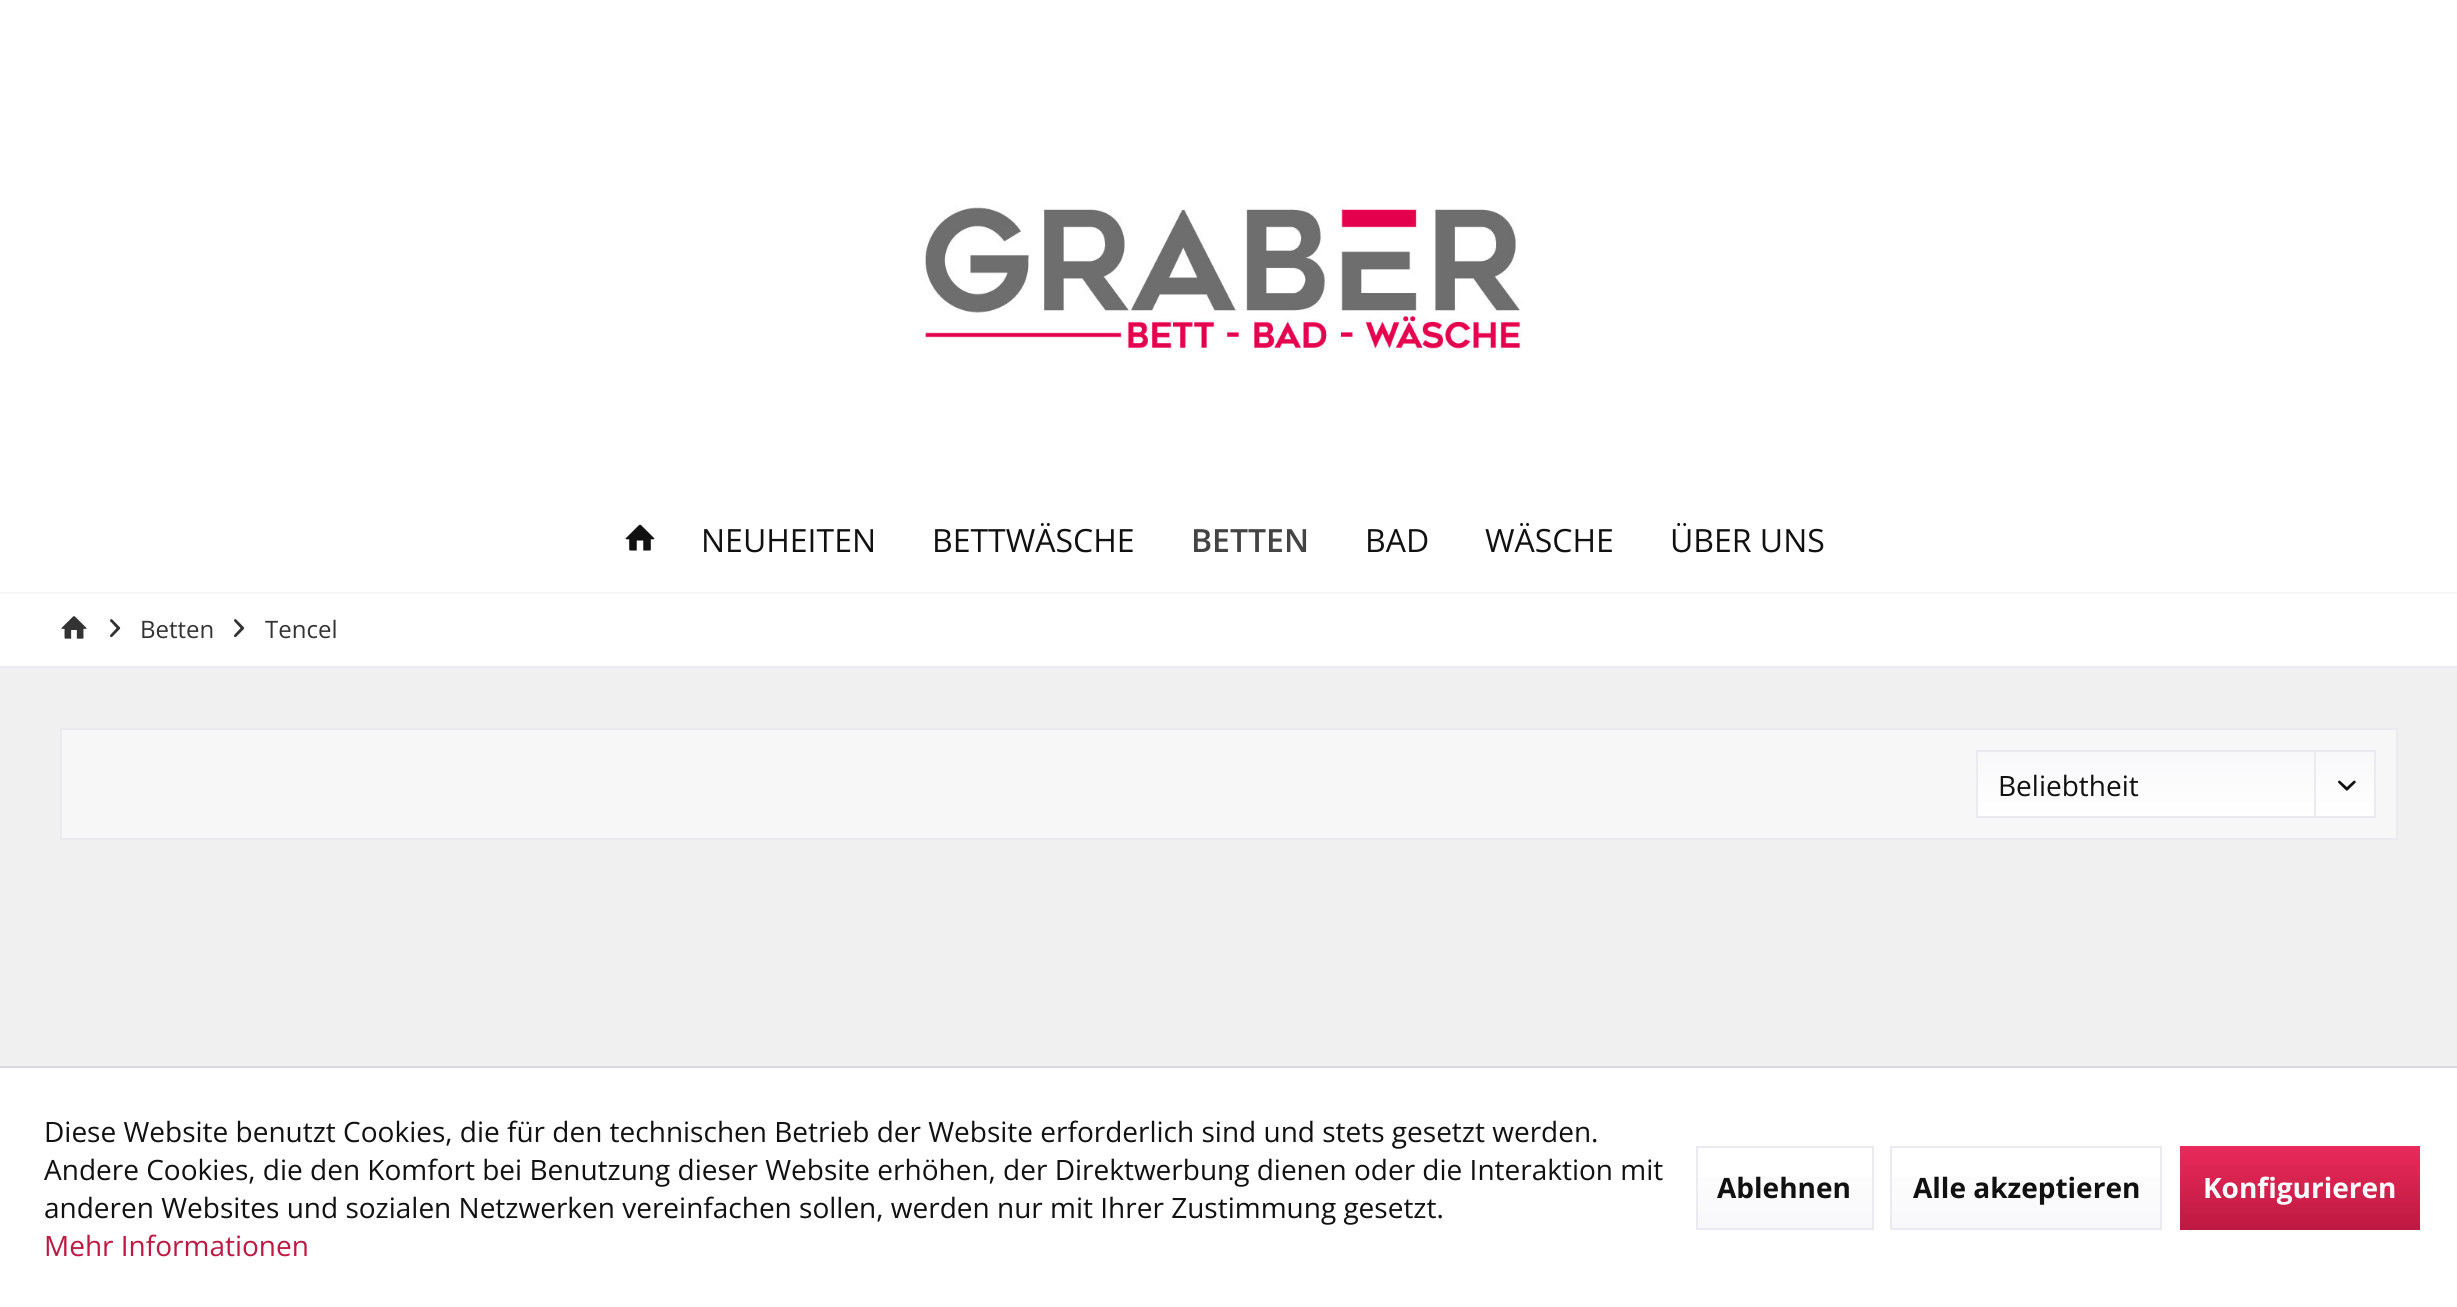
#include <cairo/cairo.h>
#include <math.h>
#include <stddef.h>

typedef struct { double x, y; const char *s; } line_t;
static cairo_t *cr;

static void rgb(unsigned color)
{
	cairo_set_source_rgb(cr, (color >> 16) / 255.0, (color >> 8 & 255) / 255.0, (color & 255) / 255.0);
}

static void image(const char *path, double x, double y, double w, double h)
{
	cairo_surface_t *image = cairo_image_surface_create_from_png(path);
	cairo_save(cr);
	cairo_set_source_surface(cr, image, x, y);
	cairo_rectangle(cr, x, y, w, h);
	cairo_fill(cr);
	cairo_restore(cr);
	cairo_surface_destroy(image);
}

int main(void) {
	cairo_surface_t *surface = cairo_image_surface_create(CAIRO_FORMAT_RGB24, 2457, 1307);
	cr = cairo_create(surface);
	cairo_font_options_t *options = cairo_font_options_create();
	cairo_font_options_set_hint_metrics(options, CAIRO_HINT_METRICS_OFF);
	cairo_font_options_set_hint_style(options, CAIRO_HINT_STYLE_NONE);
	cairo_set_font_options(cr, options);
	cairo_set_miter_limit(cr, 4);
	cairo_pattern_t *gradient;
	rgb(0xf0f0f0);
	cairo_paint(cr);
	rgb(0xffffff);
	cairo_rectangle(cr, 0, 0, 2457, 592);
	cairo_fill(cr);
	rgb(0xf6f6f6);
	cairo_rectangle(cr, 0, 592, 2457, 2);
	cairo_fill(cr);
	image("img/1.png", 924, 206, 598, 144);
	image("img/2.png", 625, 524, 30, 27);
	rgb(0xffffff);
	cairo_rectangle(cr, 0, 594, 2457, 72);
	cairo_fill(cr);
	rgb(0xeaeaf0);
	cairo_rectangle(cr, 0, 666, 2457, 2);
	cairo_fill(cr);
	image("img/3.png", 61, 616, 26, 23);
	image("img/4.png", 110, 619, 11, 19);
	image("img/4.png", 234, 619, 11, 19);
	rgb(0xf7f7f7);
	cairo_rectangle(cr, 61, 729, 2336, 110);
	cairo_fill_preserve(cr);
	rgb(0xeaeaf0);
	cairo_stroke(cr);
	gradient = cairo_pattern_create_linear(2176, 752, 2176, 816);
	cairo_pattern_add_color_stop_rgba(gradient, 0, 0.973, 0.973, 0.98, 1);
	cairo_pattern_add_color_stop_rgba(gradient, 1, 1, 1, 1, 1);
	cairo_set_source(cr, gradient);
	cairo_pattern_destroy(gradient);
	cairo_rectangle(cr, 1978, 752, 396, 64);
	cairo_fill(cr);
	cairo_rectangle(cr, 1977, 751, 398, 66);
	rgb(0xeaeaf0);
	cairo_stroke(cr);
	cairo_rectangle(cr, 2314, 752, 2, 66);
	cairo_fill(cr);
	image("img/5.png", 2338, 780, 18, 11);
	rgb(0xffffff);
	cairo_rectangle(cr, 0, 1068, 2457, 239);
	cairo_fill(cr);
	rgb(0xdadae5);
	cairo_rectangle(cr, 0, 1066, 2457, 2);
	cairo_fill(cr);
	gradient = cairo_pattern_create_linear(1785, 1148, 1785, 1228);
	cairo_pattern_add_color_stop_rgba(gradient, 0, 1, 1, 1, 1);
	cairo_pattern_add_color_stop_rgba(gradient, 1, 0.973, 0.973, 0.98, 1);
	cairo_set_source(cr, gradient);
	cairo_pattern_destroy(gradient);
	cairo_rectangle(cr, 1698, 1177, 174, 51);
	cairo_fill(cr);
	cairo_rectangle(cr, 1697, 1147, 176, 82);
	rgb(0xeaeaf0);
	cairo_stroke(cr);
	gradient = cairo_pattern_create_linear(2026, 1148, 2026, 1228);
	cairo_pattern_add_color_stop_rgba(gradient, 0, 1, 1, 1, 1);
	cairo_pattern_add_color_stop_rgba(gradient, 1, 0.973, 0.973, 0.98, 1);
	cairo_set_source(cr, gradient);
	cairo_pattern_destroy(gradient);
	cairo_rectangle(cr, 1892, 1177, 268, 51);
	cairo_fill(cr);
	cairo_rectangle(cr, 1891, 1147, 270, 82);
	rgb(0xeaeaf0);
	cairo_stroke(cr);
	gradient = cairo_pattern_create_linear(2300, 1146, 2300, 1230);
	cairo_pattern_add_color_stop_rgba(gradient, 0, 0.914, 0.165, 0.353, 1);
	cairo_pattern_add_color_stop_rgba(gradient, 1, 0.741, 0.098, 0.259, 1);
	cairo_set_source(cr, gradient);
	cairo_pattern_destroy(gradient);
	cairo_rectangle(cr, 2180, 1146, 240, 84);
	cairo_fill(cr);
	cairo_select_font_face(cr, "Open Sans", CAIRO_FONT_SLANT_NORMAL, CAIRO_FONT_WEIGHT_NORMAL);
	cairo_set_font_size(cr, 32);
	rgb(0x111111);
	cairo_move_to(cr, 701, 552);
	cairo_show_text(cr, "NEUHEITEN");
	cairo_move_to(cr, 932, 552);
	cairo_show_text(cr, "BETTWÄSCHE");
	cairo_select_font_face(cr, "Open Sans SemiBold", CAIRO_FONT_SLANT_NORMAL, CAIRO_FONT_WEIGHT_NORMAL);
	rgb(0x444444);
	cairo_move_to(cr, 1191, 552);
	cairo_show_text(cr, "BETTEN");
	cairo_select_font_face(cr, "Open Sans", CAIRO_FONT_SLANT_NORMAL, CAIRO_FONT_WEIGHT_NORMAL);
	rgb(0x111111);
	{
		static const line_t items[] = {
			{1365, 552, "BAD"},
			{1485, 552, "WÄSCHE"},
			{1670, 552, "ÜBER UNS"},
		};
		for (size_t i = 0; i < sizeof items / sizeof *items; i++) {
			cairo_move_to(cr, items[i].x, items[i].y);
			cairo_show_text(cr, items[i].s);
		}
	}
	cairo_set_font_size(cr, 24);
	rgb(0x333333);
	cairo_move_to(cr, 140, 638);
	cairo_show_text(cr, "Betten");
	cairo_move_to(cr, 265, 638);
	cairo_show_text(cr, "Tencel");
	cairo_set_font_size(cr, 28);
	rgb(0x111111);
	{
		static const line_t items[] = {
			{1998, 796, "Beliebtheit"},
			{44, 1142, "Diese Website benutzt Cookies, die für den technischen Betrieb der Website erforderlich sind und stets gesetzt werden."},
			{44, 1180, "Andere Cookies, die den Komfort bei Benutzung dieser Website erhöhen, der Direktwerbung dienen oder die Interaktion mit"},
			{44, 1218, "anderen Websites und sozialen Netzwerken vereinfachen sollen, werden nur mit Ihrer Zustimmung gesetzt."},
		};
		for (size_t i = 0; i < sizeof items / sizeof *items; i++) {
			cairo_move_to(cr, items[i].x, items[i].y);
			cairo_show_text(cr, items[i].s);
		}
	}
	rgb(0xbd1942);
	cairo_move_to(cr, 44, 1256);
	cairo_show_text(cr, "Mehr Informationen");
	cairo_select_font_face(cr, "Open Sans", CAIRO_FONT_SLANT_NORMAL, CAIRO_FONT_WEIGHT_BOLD);
	rgb(0x111111);
	cairo_move_to(cr, 1717, 1198);
	cairo_show_text(cr, "Ablehnen");
	cairo_move_to(cr, 1913, 1198);
	cairo_show_text(cr, "Alle akzeptieren");
	rgb(0xffffff);
	cairo_move_to(cr, 2203, 1198);
	cairo_show_text(cr, "Konfigurieren");
	cairo_surface_write_to_png(surface, "page.png");
	cairo_font_options_destroy(options);
	cairo_destroy(cr);
	cairo_surface_destroy(surface);
	return 0;
}
